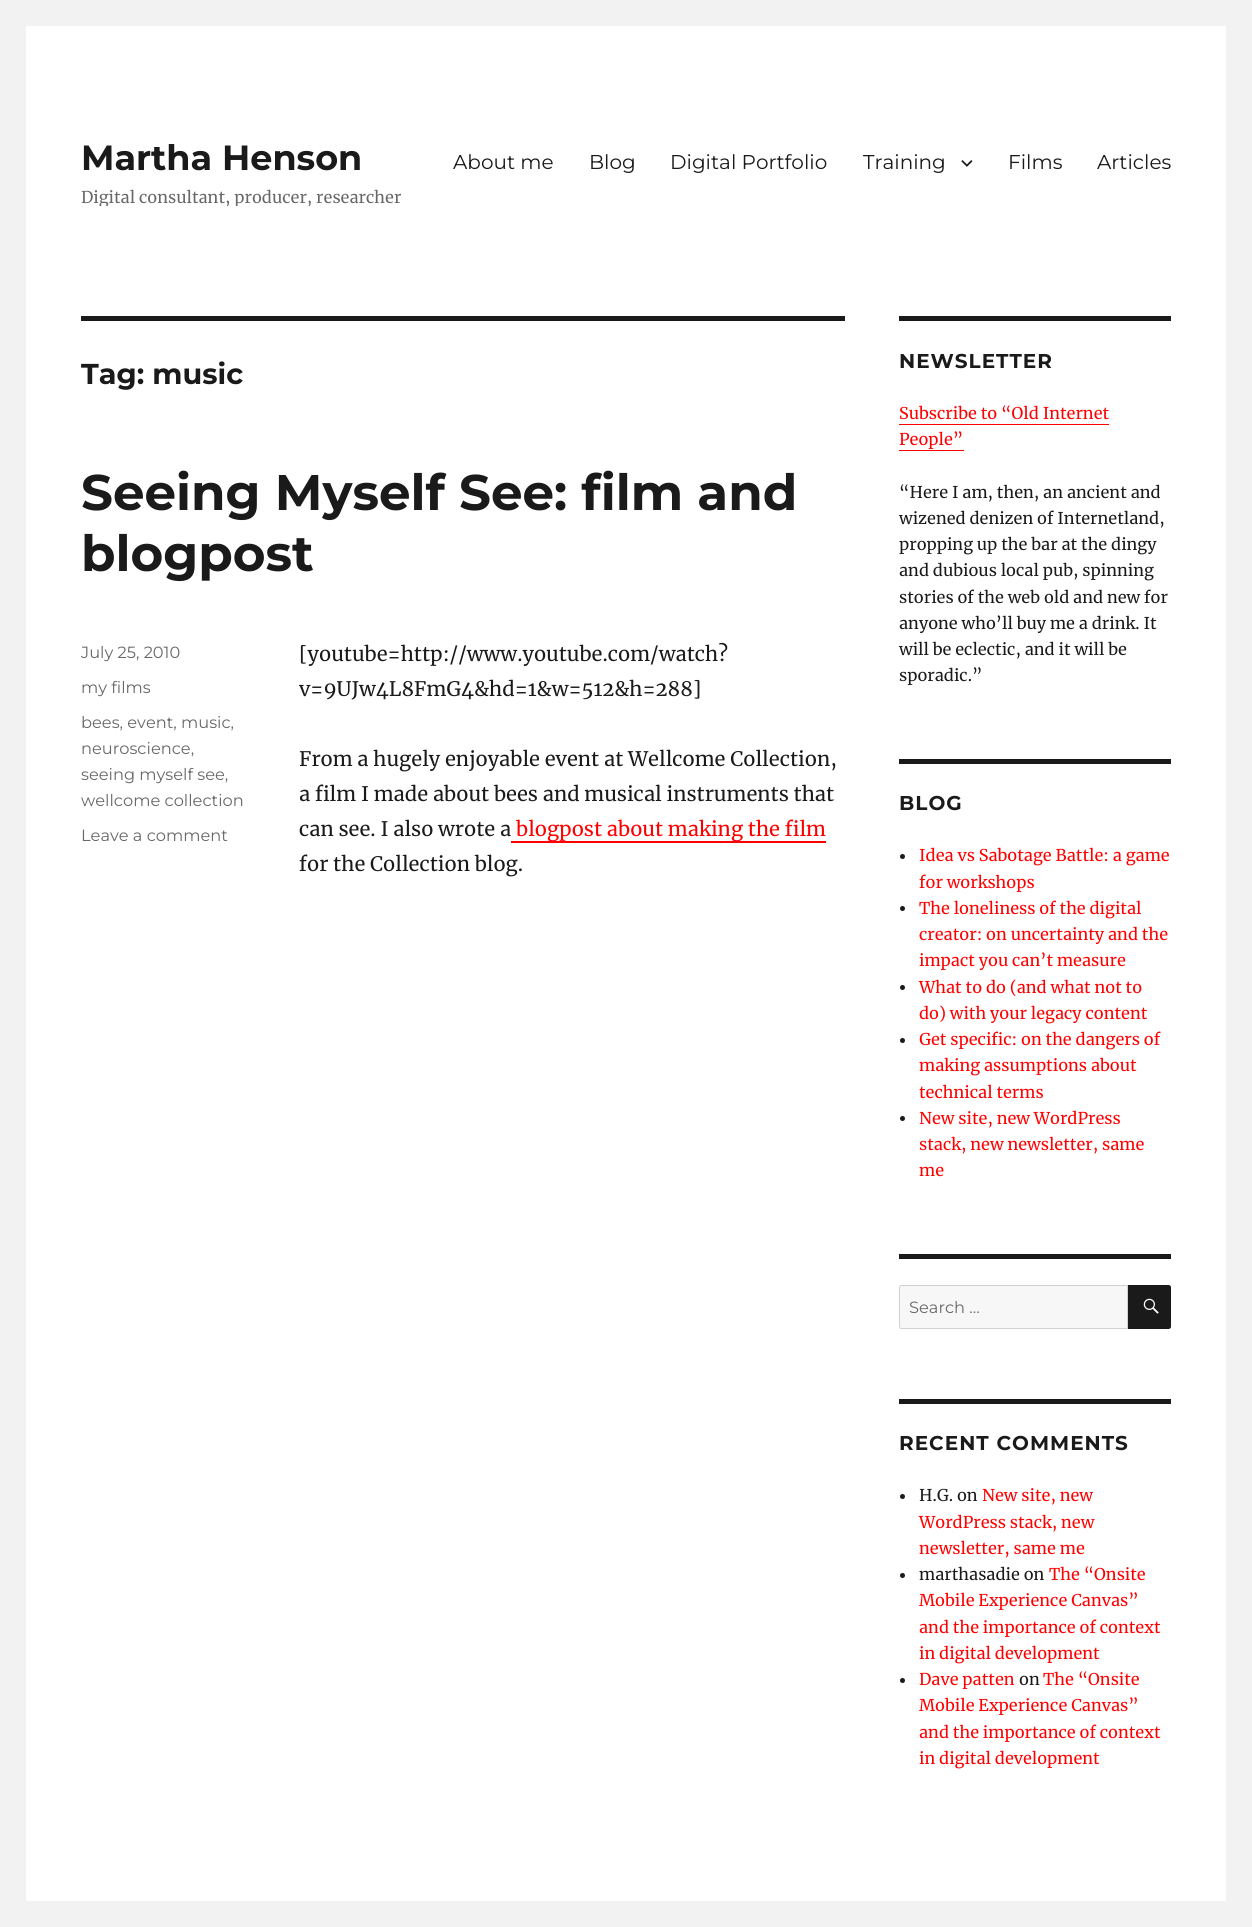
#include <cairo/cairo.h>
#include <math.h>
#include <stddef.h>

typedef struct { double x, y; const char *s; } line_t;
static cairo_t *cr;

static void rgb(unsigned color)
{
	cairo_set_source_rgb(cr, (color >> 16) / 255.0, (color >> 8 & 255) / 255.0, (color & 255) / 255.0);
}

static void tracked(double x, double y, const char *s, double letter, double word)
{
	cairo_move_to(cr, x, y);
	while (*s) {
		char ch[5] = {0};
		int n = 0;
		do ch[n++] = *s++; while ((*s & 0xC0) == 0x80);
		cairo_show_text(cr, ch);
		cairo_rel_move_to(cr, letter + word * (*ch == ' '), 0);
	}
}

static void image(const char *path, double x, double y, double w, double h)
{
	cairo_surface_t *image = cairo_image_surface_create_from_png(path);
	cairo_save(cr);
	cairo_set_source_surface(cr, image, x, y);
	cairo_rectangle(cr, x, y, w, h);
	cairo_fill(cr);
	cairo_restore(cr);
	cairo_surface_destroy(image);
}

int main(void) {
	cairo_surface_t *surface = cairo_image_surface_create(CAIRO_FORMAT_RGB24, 1252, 1927);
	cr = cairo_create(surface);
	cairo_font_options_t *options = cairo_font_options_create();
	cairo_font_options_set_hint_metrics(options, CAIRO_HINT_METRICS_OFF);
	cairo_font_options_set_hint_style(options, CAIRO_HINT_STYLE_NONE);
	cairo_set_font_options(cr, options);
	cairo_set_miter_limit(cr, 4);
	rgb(0xf2f2f2);
	cairo_paint(cr);
	rgb(0xffffff);
	cairo_rectangle(cr, 26, 26, 1200, 1875);
	cairo_fill(cr);
	image("img/1.png", 961, 160, 12, 7);
	rgb(0x1a1a1a);
	cairo_rectangle(cr, 81, 316, 764, 5);
	cairo_fill(cr);
	rgb(0xff0000);
	cairo_new_path(cr);
	cairo_move_to(cr, 511, 818);
	cairo_line_to(cr, 511, 843);
	cairo_line_to(cr, 826, 843);
	cairo_line_to(cr, 826, 841);
	cairo_line_to(cr, 511, 841);
	cairo_close_path(cr);
	cairo_fill(cr);
	rgb(0x1a1a1a);
	cairo_rectangle(cr, 899, 316, 272, 5);
	cairo_fill(cr);
	rgb(0xff0000);
	cairo_new_path(cr);
	cairo_move_to(cr, 899, 424);
	cairo_line_to(cr, 899, 425);
	cairo_line_to(cr, 1109, 425);
	cairo_line_to(cr, 1109, 404);
	cairo_line_to(cr, 1109, 424);
	cairo_close_path(cr);
	cairo_fill(cr);
	cairo_new_path(cr);
	cairo_move_to(cr, 899, 450);
	cairo_line_to(cr, 899, 451);
	cairo_line_to(cr, 964, 451);
	cairo_line_to(cr, 964, 430);
	cairo_line_to(cr, 964, 450);
	cairo_close_path(cr);
	cairo_fill(cr);
	rgb(0x1a1a1a);
	cairo_rectangle(cr, 899, 759, 272, 5);
	cairo_fill(cr);
	cairo_arc(cr, 902.5, 856.5, 2.5, 0, 2 * M_PI);
	cairo_fill(cr);
	cairo_arc(cr, 902.5, 908.5, 2.5, 0, 2 * M_PI);
	cairo_fill(cr);
	cairo_arc(cr, 902.5, 987.5, 2.5, 0, 2 * M_PI);
	cairo_fill(cr);
	cairo_arc(cr, 902.5, 1040.5, 2.5, 0, 2 * M_PI);
	cairo_fill(cr);
	cairo_arc(cr, 902.5, 1118.5, 2.5, 0, 2 * M_PI);
	cairo_fill(cr);
	cairo_rectangle(cr, 899, 1254, 272, 5);
	cairo_fill(cr);
	rgb(0xf7f7f7);
	cairo_new_path(cr);
	cairo_move_to(cr, 901.5, 1285.5);
	cairo_line_to(cr, 1127.5, 1285.5);
	cairo_line_to(cr, 1127.5, 1328.5);
	cairo_line_to(cr, 901.5, 1328.5);
	cairo_curve_to(cr, 900.5, 1328.5, 899.5, 1327.5, 899.5, 1326.5);
	cairo_line_to(cr, 899.5, 1287.5);
	cairo_curve_to(cr, 899.5, 1286.5, 900.5, 1285.5, 901.5, 1285.5);
	cairo_close_path(cr);
	cairo_fill_preserve(cr);
	rgb(0xd1d1d1);
	cairo_set_line_width(cr, 1);
	cairo_stroke(cr);
	rgb(0x1a1a1a);
	cairo_new_path(cr);
	cairo_move_to(cr, 1128, 1285);
	cairo_line_to(cr, 1168.5, 1285);
	cairo_curve_to(cr, 1170, 1285, 1171, 1286, 1171, 1287.5);
	cairo_line_to(cr, 1171, 1326.5);
	cairo_curve_to(cr, 1171, 1328, 1170, 1329, 1168.5, 1329);
	cairo_line_to(cr, 1128, 1329);
	cairo_close_path(cr);
	cairo_fill(cr);
	image("img/2.png", 1143, 1298, 16, 16);
	cairo_rectangle(cr, 899, 1399, 272, 5);
	cairo_fill(cr);
	cairo_arc(cr, 902.5, 1496.5, 2.5, 0, 2 * M_PI);
	cairo_fill(cr);
	cairo_arc(cr, 902.5, 1575.5, 2.5, 0, 2 * M_PI);
	cairo_fill(cr);
	cairo_arc(cr, 902.5, 1680.5, 2.5, 0, 2 * M_PI);
	cairo_fill(cr);
	cairo_select_font_face(cr, "Montserrat Thin", CAIRO_FONT_SLANT_NORMAL, CAIRO_FONT_WEIGHT_NORMAL);
	cairo_set_font_size(cr, 35);
	cairo_move_to(cr, 81, 170);
	cairo_show_text(cr, "Martha Henson");
	cairo_save(cr);
	cairo_rectangle(cr, 81, 136, 320, 70);
	cairo_clip(cr);
	cairo_select_font_face(cr, "Merriweather", CAIRO_FONT_SLANT_NORMAL, CAIRO_FONT_WEIGHT_NORMAL);
	cairo_set_font_size(cr, 16.25);
	rgb(0x686868);
	cairo_move_to(cr, 81, 203);
	cairo_show_text(cr, "Digital consultant, producer, researcher");
	cairo_restore(cr);
	cairo_select_font_face(cr, "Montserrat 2 Thin", CAIRO_FONT_SLANT_NORMAL, CAIRO_FONT_WEIGHT_NORMAL);
	cairo_set_font_size(cr, 20);
	{
		static const line_t items[] = {
			{453, 169, "About me"},
			{589, 169, "Blog"},
			{670, 169, "Digital Portfolio"},
			{863, 169, "Training"},
			{1008, 169, "Films"},
			{1097, 169, "Articles"},
		};
		for (size_t i = 0; i < sizeof items / sizeof *items; i++) {
			cairo_move_to(cr, items[i].x, items[i].y);
			cairo_show_text(cr, items[i].s);
		}
	}
	cairo_select_font_face(cr, "Montserrat Thin", CAIRO_FONT_SLANT_NORMAL, CAIRO_FONT_WEIGHT_NORMAL);
	cairo_set_font_size(cr, 28.75);
	cairo_move_to(cr, 81, 384);
	cairo_show_text(cr, "Tag: music");
	cairo_set_font_size(cr, 50);
	cairo_move_to(cr, 81, 510);
	cairo_show_text(cr, "Seeing Myself See: film and");
	cairo_move_to(cr, 81, 571);
	cairo_show_text(cr, "blogpost");
	cairo_select_font_face(cr, "Montserrat 2 Thin", CAIRO_FONT_SLANT_NORMAL, CAIRO_FONT_WEIGHT_NORMAL);
	cairo_set_font_size(cr, 16.25);
	rgb(0x686868);
	{
		static const line_t items[] = {
			{81, 658, "July 25, 2010"},
			{81, 693, "my films"},
			{81, 728, "bees, event, music,"},
			{81, 754, "neuroscience,"},
			{81, 780, "seeing myself see,"},
			{81, 806, "wellcome collection"},
			{81, 841, "Leave a comment"},
		};
		for (size_t i = 0; i < sizeof items / sizeof *items; i++) {
			cairo_move_to(cr, items[i].x, items[i].y);
			cairo_show_text(cr, items[i].s);
		}
	}
	cairo_select_font_face(cr, "Merriweather", CAIRO_FONT_SLANT_NORMAL, CAIRO_FONT_WEIGHT_NORMAL);
	cairo_set_font_size(cr, 20);
	rgb(0x1a1a1a);
	{
		static const line_t items[] = {
			{299, 661, "[youtube=http://www.youtube.com/watch?"},
			{299, 696, "v=9UJw4L8FmG4&hd=1&w=512&h=288]"},
			{299, 766, "From a hugely enjoyable event at Wellcome Collection,"},
			{299, 801, "a film I made about bees and musical instruments that"},
			{299, 836, "can see. I also wrote a"},
		};
		for (size_t i = 0; i < sizeof items / sizeof *items; i++) {
			cairo_move_to(cr, items[i].x, items[i].y);
			cairo_show_text(cr, items[i].s);
		}
	}
	rgb(0xff0000);
	cairo_move_to(cr, 516, 836);
	cairo_show_text(cr, "blogpost about making the film");
	rgb(0x1a1a1a);
	cairo_move_to(cr, 299, 871);
	cairo_show_text(cr, "for the Collection blog.");
	cairo_select_font_face(cr, "Montserrat Thin", CAIRO_FONT_SLANT_NORMAL, CAIRO_FONT_WEIGHT_NORMAL);
	tracked(899, 368, "NEWSLETTER", 1, 0);
	cairo_select_font_face(cr, "Merriweather", CAIRO_FONT_SLANT_NORMAL, CAIRO_FONT_WEIGHT_NORMAL);
	cairo_set_font_size(cr, 16.25);
	rgb(0xff0000);
	cairo_move_to(cr, 899, 419);
	cairo_show_text(cr, "Subscribe to “Old Internet");
	cairo_move_to(cr, 899, 445);
	cairo_show_text(cr, "People”");
	rgb(0x1a1a1a);
	{
		static const line_t items[] = {
			{899, 498, "“Here I am, then, an ancient and"},
			{899, 524, "wizened denizen of Internetland,"},
			{899, 550, "propping up the bar at the dingy"},
			{899, 576, "and dubious local pub, spinning"},
			{899, 603, "stories of the web old and new for"},
			{899, 629, "anyone who’ll buy me a drink. It"},
			{899, 655, "will be eclectic, and it will be"},
			{899, 681, "sporadic.”"},
		};
		for (size_t i = 0; i < sizeof items / sizeof *items; i++) {
			cairo_move_to(cr, items[i].x, items[i].y);
			cairo_show_text(cr, items[i].s);
		}
	}
	cairo_select_font_face(cr, "Montserrat Thin", CAIRO_FONT_SLANT_NORMAL, CAIRO_FONT_WEIGHT_NORMAL);
	cairo_set_font_size(cr, 20);
	tracked(899, 810, "BLOG", 1, 0);
	cairo_select_font_face(cr, "Merriweather", CAIRO_FONT_SLANT_NORMAL, CAIRO_FONT_WEIGHT_NORMAL);
	cairo_set_font_size(cr, 16.25);
	rgb(0xff0000);
	{
		static const line_t items[] = {
			{919, 861, "Idea vs Sabotage Battle: a game"},
			{919, 888, "for workshops"},
			{919, 914, "The loneliness of the digital"},
			{919, 940, "creator: on uncertainty and the"},
			{919, 966, "impact you can’t measure"},
			{919, 993, "What to do (and what not to"},
			{919, 1019, "do) with your legacy content"},
			{919, 1045, "Get specific: on the dangers of"},
			{919, 1071, "making assumptions about"},
			{919, 1098, "technical terms"},
			{919, 1124, "New site, new WordPress"},
			{919, 1150, "stack, new newsletter, same"},
			{919, 1176, "me"},
		};
		for (size_t i = 0; i < sizeof items / sizeof *items; i++) {
			cairo_move_to(cr, items[i].x, items[i].y);
			cairo_show_text(cr, items[i].s);
		}
	}
	cairo_select_font_face(cr, "Montserrat 2 Thin", CAIRO_FONT_SLANT_NORMAL, CAIRO_FONT_WEIGHT_NORMAL);
	rgb(0x686868);
	cairo_move_to(cr, 909, 1313);
	cairo_show_text(cr, "Search …");
	cairo_select_font_face(cr, "Montserrat Thin", CAIRO_FONT_SLANT_NORMAL, CAIRO_FONT_WEIGHT_NORMAL);
	cairo_set_font_size(cr, 20);
	rgb(0x1a1a1a);
	tracked(899, 1450, "RECENT COMMENTS", 1, 0);
	cairo_select_font_face(cr, "Merriweather", CAIRO_FONT_SLANT_NORMAL, CAIRO_FONT_WEIGHT_NORMAL);
	cairo_set_font_size(cr, 16.25);
	cairo_move_to(cr, 919, 1501);
	cairo_show_text(cr, "H.G. on");
	rgb(0xff0000);
	{
		static const line_t items[] = {
			{982, 1501, "New site, new"},
			{919, 1528, "WordPress stack, new"},
			{919, 1554, "newsletter, same me"},
		};
		for (size_t i = 0; i < sizeof items / sizeof *items; i++) {
			cairo_move_to(cr, items[i].x, items[i].y);
			cairo_show_text(cr, items[i].s);
		}
	}
	rgb(0x1a1a1a);
	cairo_move_to(cr, 919, 1580);
	cairo_show_text(cr, "marthasadie on");
	rgb(0xff0000);
	{
		static const line_t items[] = {
			{1049, 1580, "The “Onsite"},
			{919, 1606, "Mobile Experience Canvas”"},
			{919, 1633, "and the importance of context"},
			{919, 1659, "in digital development"},
			{919, 1685, "Dave patten"},
		};
		for (size_t i = 0; i < sizeof items / sizeof *items; i++) {
			cairo_move_to(cr, items[i].x, items[i].y);
			cairo_show_text(cr, items[i].s);
		}
	}
	rgb(0x1a1a1a);
	cairo_move_to(cr, 1019, 1685);
	cairo_show_text(cr, "on");
	rgb(0xff0000);
	{
		static const line_t items[] = {
			{1043, 1685, "The “Onsite"},
			{919, 1711, "Mobile Experience Canvas”"},
			{919, 1738, "and the importance of context"},
			{919, 1764, "in digital development"},
		};
		for (size_t i = 0; i < sizeof items / sizeof *items; i++) {
			cairo_move_to(cr, items[i].x, items[i].y);
			cairo_show_text(cr, items[i].s);
		}
	}
	cairo_surface_write_to_png(surface, "page.png");
	cairo_font_options_destroy(options);
	cairo_destroy(cr);
	cairo_surface_destroy(surface);
	return 0;
}
